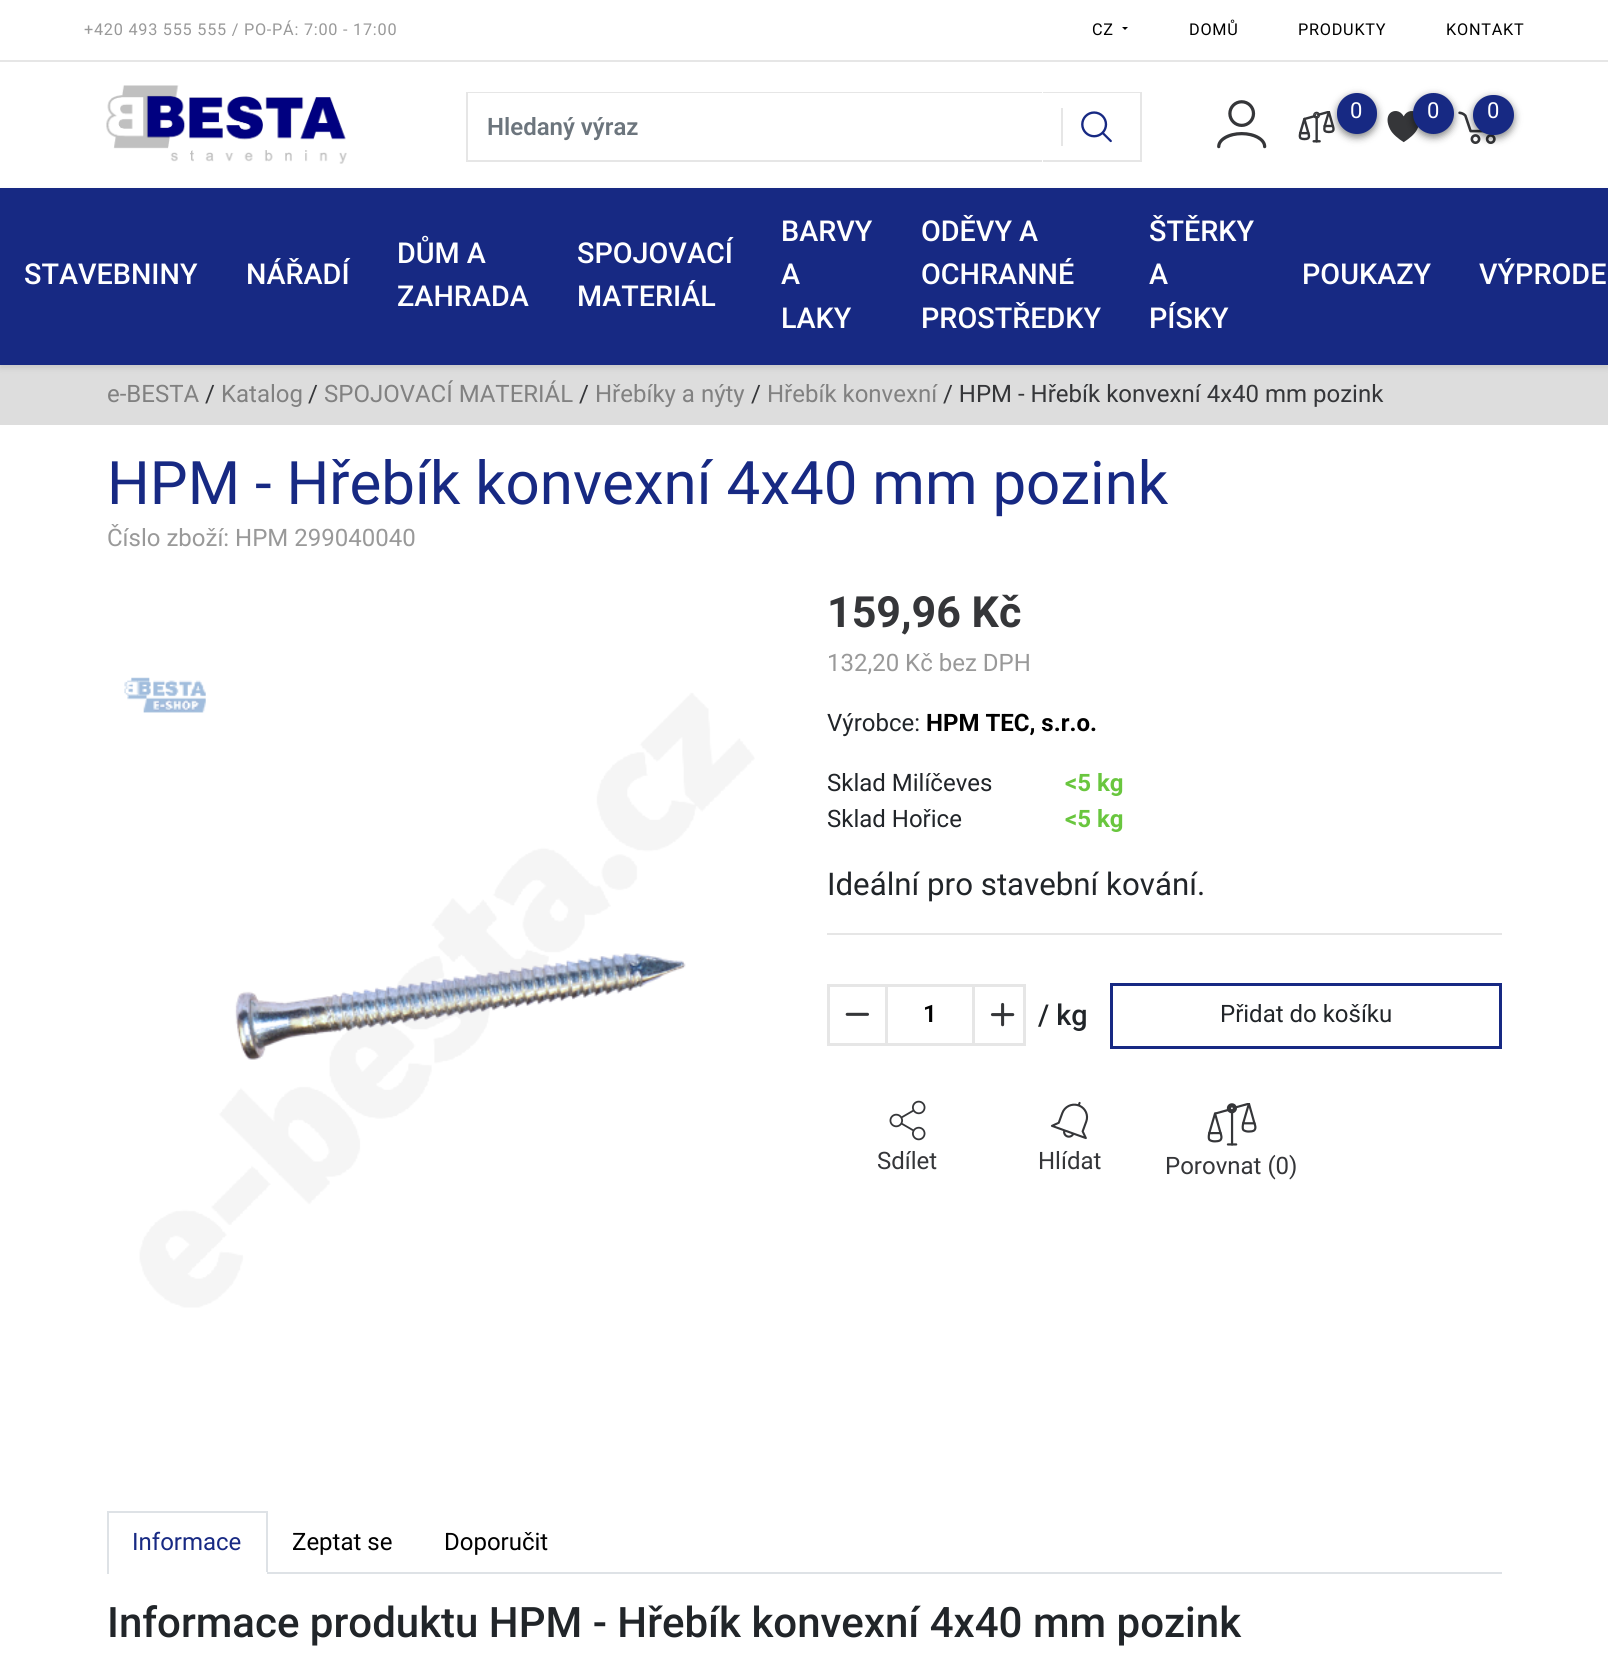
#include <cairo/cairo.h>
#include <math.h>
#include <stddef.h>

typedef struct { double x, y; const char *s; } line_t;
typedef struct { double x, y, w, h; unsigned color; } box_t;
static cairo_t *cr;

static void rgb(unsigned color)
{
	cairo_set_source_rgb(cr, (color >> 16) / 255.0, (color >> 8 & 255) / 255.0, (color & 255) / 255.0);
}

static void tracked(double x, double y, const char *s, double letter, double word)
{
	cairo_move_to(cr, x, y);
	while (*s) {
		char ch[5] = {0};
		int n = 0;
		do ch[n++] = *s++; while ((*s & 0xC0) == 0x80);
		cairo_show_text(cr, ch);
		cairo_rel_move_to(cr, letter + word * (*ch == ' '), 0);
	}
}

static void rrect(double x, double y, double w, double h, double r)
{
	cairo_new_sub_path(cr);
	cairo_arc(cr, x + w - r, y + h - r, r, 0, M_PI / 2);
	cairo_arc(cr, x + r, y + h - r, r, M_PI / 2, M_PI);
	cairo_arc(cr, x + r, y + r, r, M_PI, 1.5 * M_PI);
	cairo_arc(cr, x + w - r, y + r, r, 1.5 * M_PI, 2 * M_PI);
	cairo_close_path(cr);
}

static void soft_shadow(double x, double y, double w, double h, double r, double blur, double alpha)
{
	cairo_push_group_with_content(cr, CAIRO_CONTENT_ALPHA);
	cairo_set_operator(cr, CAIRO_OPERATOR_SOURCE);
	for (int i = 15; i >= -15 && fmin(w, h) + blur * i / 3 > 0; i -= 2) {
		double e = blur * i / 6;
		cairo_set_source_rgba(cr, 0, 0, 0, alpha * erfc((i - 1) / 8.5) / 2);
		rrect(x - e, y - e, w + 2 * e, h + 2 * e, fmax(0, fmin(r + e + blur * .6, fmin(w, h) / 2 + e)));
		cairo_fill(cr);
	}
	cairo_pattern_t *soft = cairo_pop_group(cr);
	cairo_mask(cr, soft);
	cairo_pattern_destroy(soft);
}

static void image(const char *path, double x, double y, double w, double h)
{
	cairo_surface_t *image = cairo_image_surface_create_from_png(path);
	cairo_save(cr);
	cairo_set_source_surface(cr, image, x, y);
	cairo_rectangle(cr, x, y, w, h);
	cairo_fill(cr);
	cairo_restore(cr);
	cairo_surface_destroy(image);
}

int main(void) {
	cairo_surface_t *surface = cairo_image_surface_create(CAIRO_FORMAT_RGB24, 1608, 1667);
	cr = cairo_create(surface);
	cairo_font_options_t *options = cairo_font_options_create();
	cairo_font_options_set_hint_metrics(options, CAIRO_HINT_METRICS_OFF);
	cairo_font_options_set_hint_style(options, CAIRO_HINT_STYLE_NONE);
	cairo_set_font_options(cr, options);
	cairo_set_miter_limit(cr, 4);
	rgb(0xffffff);
	cairo_paint(cr);
	rgb(0x000000);
	cairo_new_path(cr);
	cairo_move_to(cr, 1122, 27);
	cairo_line_to(cr, 1128, 27);
	cairo_line_to(cr, 1125, 30);
	cairo_close_path(cr);
	cairo_fill(cr);
	rgb(0xe6e6e6);
	cairo_rectangle(cr, 0, 60, 1608, 2);
	cairo_fill(cr);
	image("img/1.png", 106, 85, 241, 79);
	image("img/2.png", 1217, 100, 50, 49);
	image("img/3.png", 1298, 111, 37, 32);
	image("img/4.png", 1387, 111, 32, 32);
	rgb(0x010202);
	soft_shadow(1337, 96, 40, 41, 20, 4, 0.5);
	rgb(0x172983);
	rrect(1337, 93, 40, 41, 20);
	cairo_fill(cr);
	image("img/5.png", 1458, 111, 38, 33);
	rgb(0x010202);
	soft_shadow(1413, 96, 41, 41, 20.5, 4, 0.5);
	rgb(0x172983);
	cairo_arc(cr, 1433.5, 113.5, 20.5, 0, 2 * M_PI);
	cairo_fill(cr);
	rgb(0x010202);
	soft_shadow(1473, 98, 41, 40, 20, 4, 0.5);
	rgb(0x172983);
	rrect(1473, 95, 41, 40, 20);
	cairo_fill(cr);
	rgb(0xe6e6e6);
	cairo_new_path(cr);
	cairo_move_to(cr, 1041, 92);
	cairo_line_to(cr, 1142, 92);
	cairo_line_to(cr, 1140, 93);
	cairo_line_to(cr, 1041, 93);
	cairo_close_path(cr);
	cairo_fill(cr);
	cairo_set_source_rgba(cr, 0, 0, 0, 0.1);
	cairo_new_path(cr);
	cairo_move_to(cr, 1142, 92);
	cairo_line_to(cr, 1142, 162);
	cairo_line_to(cr, 1140, 160);
	cairo_line_to(cr, 1140, 93);
	cairo_close_path(cr);
	cairo_fill(cr);
	cairo_new_path(cr);
	cairo_move_to(cr, 1142, 162);
	cairo_line_to(cr, 1041, 162);
	cairo_line_to(cr, 1041, 160);
	cairo_line_to(cr, 1140, 160);
	cairo_close_path(cr);
	cairo_fill(cr);
	rgb(0xffffff);
	cairo_rectangle(cr, 1041, 92, 2, 70);
	cairo_fill(cr);
	rgb(0xe6e6e6);
	cairo_new_path(cr);
	cairo_move_to(cr, 466, 92);
	cairo_line_to(cr, 1042, 92);
	cairo_line_to(cr, 1042, 93);
	cairo_line_to(cr, 468, 93);
	cairo_close_path(cr);
	cairo_fill(cr);
	cairo_new_path(cr);
	cairo_move_to(cr, 1042, 162);
	cairo_line_to(cr, 466, 162);
	cairo_line_to(cr, 468, 160);
	cairo_line_to(cr, 1042, 160);
	cairo_close_path(cr);
	cairo_fill(cr);
	cairo_set_source_rgba(cr, 0, 0, 0, 0.1);
	cairo_new_path(cr);
	cairo_move_to(cr, 466, 162);
	cairo_line_to(cr, 466, 92);
	cairo_line_to(cr, 468, 93);
	cairo_line_to(cr, 468, 160);
	cairo_close_path(cr);
	cairo_fill(cr);
	rgb(0xe6e6e6);
	cairo_rectangle(cr, 1061, 108, 2, 38);
	cairo_fill(cr);
	image("img/6.png", 1081, 111, 31, 32);
	rgb(0xdddddd);
	cairo_rectangle(cr, 0, 365, 1608, 60);
	cairo_fill(cr);
	rgb(0x010202);
	soft_shadow(0, 191, 1608, 177, 0, 3, 0.1);
	rgb(0x172983);
	cairo_rectangle(cr, 0, 188, 1608, 177);
	cairo_fill(cr);
	image("img/7.png", 124, 677, 631, 631);
	rgb(0xe6e6e6);
	cairo_rectangle(cr, 827, 933, 675, 2);
	cairo_fill(cr);
	cairo_rectangle(cr, 828.5, 985.5, 196, 59);
	cairo_set_line_width(cr, 3);
	cairo_stroke(cr);
	image("img/8.png", 845, 1012, 24, 4);
	cairo_rectangle(cr, 972, 987, 3, 56);
	cairo_fill(cr);
	cairo_rectangle(cr, 885, 987, 3, 56);
	cairo_fill(cr);
	image("img/9.png", 990, 1002, 25, 25);
	cairo_rectangle(cr, 1111.5, 984.5, 389, 63);
	rgb(0x172983);
	cairo_stroke(cr);
	image("img/10.png", 889, 1100, 37, 41);
	image("img/11.png", 1050, 1101, 39, 39);
	image("img/12.png", 1207, 1103, 50, 43);
	{
		static const box_t items[] = {
			{268, 1572, 1234, 2, 0xdee2e6},
			{107, 1511, 160, 2, 0xdee2e6},
			{266, 1511, 2, 63, 0xdee2e6},
			{266, 1572, 1, 2, 0xffffff},
			{107, 1511, 2, 63, 0xdee2e6},
		};
		for (size_t i = 0; i < sizeof items / sizeof *items; i++) {
			rgb(items[i].color);
			cairo_rectangle(cr, items[i].x, items[i].y, items[i].w, items[i].h);
			cairo_fill(cr);
		}
	}
	cairo_select_font_face(cr, "Roboto", CAIRO_FONT_SLANT_NORMAL, CAIRO_FONT_WEIGHT_NORMAL);
	cairo_set_font_size(cr, 16.25);
	rgb(0x999999);
	tracked(84, 35, "+420 493 555 555 / PO-PÁ: 7:00 - 17:00", 0.75, 0);
	rgb(0x000000);
	{
		static const line_t items[] = {
			{1092, 35, "CZ"},
			{1189, 35, "DOMŮ"},
			{1298, 35, "PRODUKTY"},
			{1446, 35, "KONTAKT"},
		};
		for (size_t i = 0; i < sizeof items / sizeof *items; i++) {
			tracked(items[i].x, items[i].y, items[i].s, 0.75, 0);
		}
	}
	cairo_set_font_size(cr, 22);
	rgb(0xffffff);
	{
		static const line_t items[] = {
			{1350, 118, "0"},
			{1427, 118, "0"},
			{1487, 118, "0"},
		};
		for (size_t i = 0; i < sizeof items / sizeof *items; i++) {
			cairo_move_to(cr, items[i].x, items[i].y);
			cairo_show_text(cr, items[i].s);
		}
	}
	cairo_select_font_face(cr, "Roboto SemiBold", CAIRO_FONT_SLANT_NORMAL, CAIRO_FONT_WEIGHT_NORMAL);
	cairo_set_font_size(cr, 24);
	rgb(0x6c757d);
	cairo_move_to(cr, 487, 135);
	cairo_show_text(cr, "Hledaný výraz");
	cairo_select_font_face(cr, "Roboto Medium", CAIRO_FONT_SLANT_NORMAL, CAIRO_FONT_WEIGHT_NORMAL);
	cairo_set_font_size(cr, 28.75);
	rgb(0xffffff);
	{
		static const line_t items[] = {
			{24, 284, "STAVEBNINY"},
			{246, 284, "NÁŘADÍ"},
			{397, 263, "DŮM A"},
			{397, 306, "ZAHRADA"},
			{577, 263, "SPOJOVACÍ"},
			{577, 306, "MATERIÁL"},
			{781, 241, "BARVY"},
			{781, 284, "A"},
			{781, 328, "LAKY"},
			{921, 241, "ODĚVY A"},
			{921, 284, "OCHRANNÉ"},
			{921, 328, "PROSTŘEDKY"},
			{1149, 241, "ŠTĚRKY"},
			{1149, 284, "A"},
			{1149, 328, "PÍSKY"},
			{1302, 284, "POUKAZY"},
			{1479, 284, "VÝPRODE"},
		};
		for (size_t i = 0; i < sizeof items / sizeof *items; i++) {
			cairo_move_to(cr, items[i].x, items[i].y);
			cairo_show_text(cr, items[i].s);
		}
	}
	cairo_select_font_face(cr, "Roboto", CAIRO_FONT_SLANT_NORMAL, CAIRO_FONT_WEIGHT_NORMAL);
	cairo_set_font_size(cr, 24);
	rgb(0x818181);
	cairo_move_to(cr, 107, 402);
	cairo_show_text(cr, "e-BESTA");
	rgb(0x353639);
	cairo_move_to(cr, 205, 402);
	cairo_show_text(cr, "/");
	rgb(0x818181);
	cairo_move_to(cr, 221, 402);
	cairo_show_text(cr, "Katalog");
	rgb(0x353639);
	cairo_move_to(cr, 308, 402);
	cairo_show_text(cr, "/");
	rgb(0x818181);
	cairo_move_to(cr, 324, 402);
	cairo_show_text(cr, "SPOJOVACÍ MATERIÁL");
	rgb(0x353639);
	cairo_move_to(cr, 579, 402);
	cairo_show_text(cr, "/");
	rgb(0x818181);
	cairo_move_to(cr, 595, 402);
	cairo_show_text(cr, "Hřebíky a nýty");
	rgb(0x353639);
	cairo_move_to(cr, 751, 402);
	cairo_show_text(cr, "/");
	rgb(0x818181);
	cairo_move_to(cr, 767, 402);
	cairo_show_text(cr, "Hřebík konvexní");
	rgb(0x353639);
	cairo_move_to(cr, 943, 402);
	cairo_show_text(cr, "/ HPM - Hřebík konvexní 4x40 mm pozink");
	cairo_set_font_size(cr, 60);
	rgb(0x172983);
	cairo_move_to(cr, 107, 504);
	cairo_show_text(cr, "HPM - Hřebík konvexní 4x40 mm pozink");
	cairo_set_font_size(cr, 24);
	rgb(0x999999);
	cairo_move_to(cr, 107, 546);
	cairo_show_text(cr, "Číslo zboží: HPM 299040040");
	cairo_select_font_face(cr, "Roboto", CAIRO_FONT_SLANT_NORMAL, CAIRO_FONT_WEIGHT_BOLD);
	cairo_set_font_size(cr, 43);
	rgb(0x353639);
	cairo_move_to(cr, 827, 627);
	cairo_show_text(cr, "159,96 Kč");
	cairo_select_font_face(cr, "Roboto", CAIRO_FONT_SLANT_NORMAL, CAIRO_FONT_WEIGHT_NORMAL);
	cairo_set_font_size(cr, 24);
	rgb(0x999999);
	cairo_move_to(cr, 827, 671);
	cairo_show_text(cr, "132,20 Kč bez DPH");
	rgb(0x212529);
	cairo_move_to(cr, 827, 731);
	cairo_show_text(cr, "Výrobce:");
	cairo_select_font_face(cr, "Roboto", CAIRO_FONT_SLANT_NORMAL, CAIRO_FONT_WEIGHT_BOLD);
	rgb(0x000000);
	cairo_move_to(cr, 926, 731);
	cairo_show_text(cr, "HPM TEC, s.r.o.");
	cairo_select_font_face(cr, "Roboto", CAIRO_FONT_SLANT_NORMAL, CAIRO_FONT_WEIGHT_NORMAL);
	rgb(0x212529);
	cairo_move_to(cr, 827, 791);
	cairo_show_text(cr, "Sklad Milíčeves");
	cairo_select_font_face(cr, "Roboto", CAIRO_FONT_SLANT_NORMAL, CAIRO_FONT_WEIGHT_BOLD);
	rgb(0x69c63e);
	cairo_move_to(cr, 1065, 791);
	cairo_show_text(cr, "<5 kg");
	cairo_select_font_face(cr, "Roboto", CAIRO_FONT_SLANT_NORMAL, CAIRO_FONT_WEIGHT_NORMAL);
	rgb(0x212529);
	cairo_move_to(cr, 827, 827);
	cairo_show_text(cr, "Sklad Hořice");
	cairo_select_font_face(cr, "Roboto", CAIRO_FONT_SLANT_NORMAL, CAIRO_FONT_WEIGHT_BOLD);
	rgb(0x69c63e);
	cairo_move_to(cr, 1065, 827);
	cairo_show_text(cr, "<5 kg");
	cairo_select_font_face(cr, "Roboto", CAIRO_FONT_SLANT_NORMAL, CAIRO_FONT_WEIGHT_NORMAL);
	cairo_set_font_size(cr, 31.25);
	rgb(0x212529);
	cairo_move_to(cr, 827, 895);
	cairo_show_text(cr, "Ideální pro stavební kování.");
	cairo_select_font_face(cr, "Roboto SemiBold", CAIRO_FONT_SLANT_NORMAL, CAIRO_FONT_WEIGHT_NORMAL);
	cairo_set_font_size(cr, 24);
	rgb(0x000000);
	cairo_move_to(cr, 923, 1022);
	cairo_show_text(cr, "1");
	cairo_select_font_face(cr, "Roboto Medium", CAIRO_FONT_SLANT_NORMAL, CAIRO_FONT_WEIGHT_NORMAL);
	cairo_set_font_size(cr, 28.75);
	rgb(0x212529);
	cairo_move_to(cr, 1038, 1025);
	cairo_show_text(cr, "/ kg");
	cairo_select_font_face(cr, "Roboto", CAIRO_FONT_SLANT_NORMAL, CAIRO_FONT_WEIGHT_NORMAL);
	cairo_set_font_size(cr, 24);
	cairo_move_to(cr, 1220, 1022);
	cairo_show_text(cr, "Přidat do košíku");
	rgb(0x353639);
	{
		static const line_t items[] = {
			{877, 1169, "Sdílet"},
			{1038, 1169, "Hlídat"},
			{1165, 1174, "Porovnat (0)"},
		};
		for (size_t i = 0; i < sizeof items / sizeof *items; i++) {
			cairo_move_to(cr, items[i].x, items[i].y);
			cairo_show_text(cr, items[i].s);
		}
	}
	rgb(0x172983);
	cairo_move_to(cr, 132, 1550);
	cairo_show_text(cr, "Informace");
	rgb(0x000000);
	cairo_move_to(cr, 292, 1550);
	cairo_show_text(cr, "Zeptat se");
	cairo_move_to(cr, 444, 1550);
	cairo_show_text(cr, "Doporučit");
	cairo_select_font_face(cr, "Roboto Medium", CAIRO_FONT_SLANT_NORMAL, CAIRO_FONT_WEIGHT_NORMAL);
	cairo_set_font_size(cr, 42);
	rgb(0x212529);
	cairo_move_to(cr, 107, 1637);
	cairo_show_text(cr, "Informace produktu HPM - Hřebík konvexní 4x40 mm pozink");
	cairo_surface_write_to_png(surface, "page.png");
	cairo_font_options_destroy(options);
	cairo_destroy(cr);
	cairo_surface_destroy(surface);
	return 0;
}
